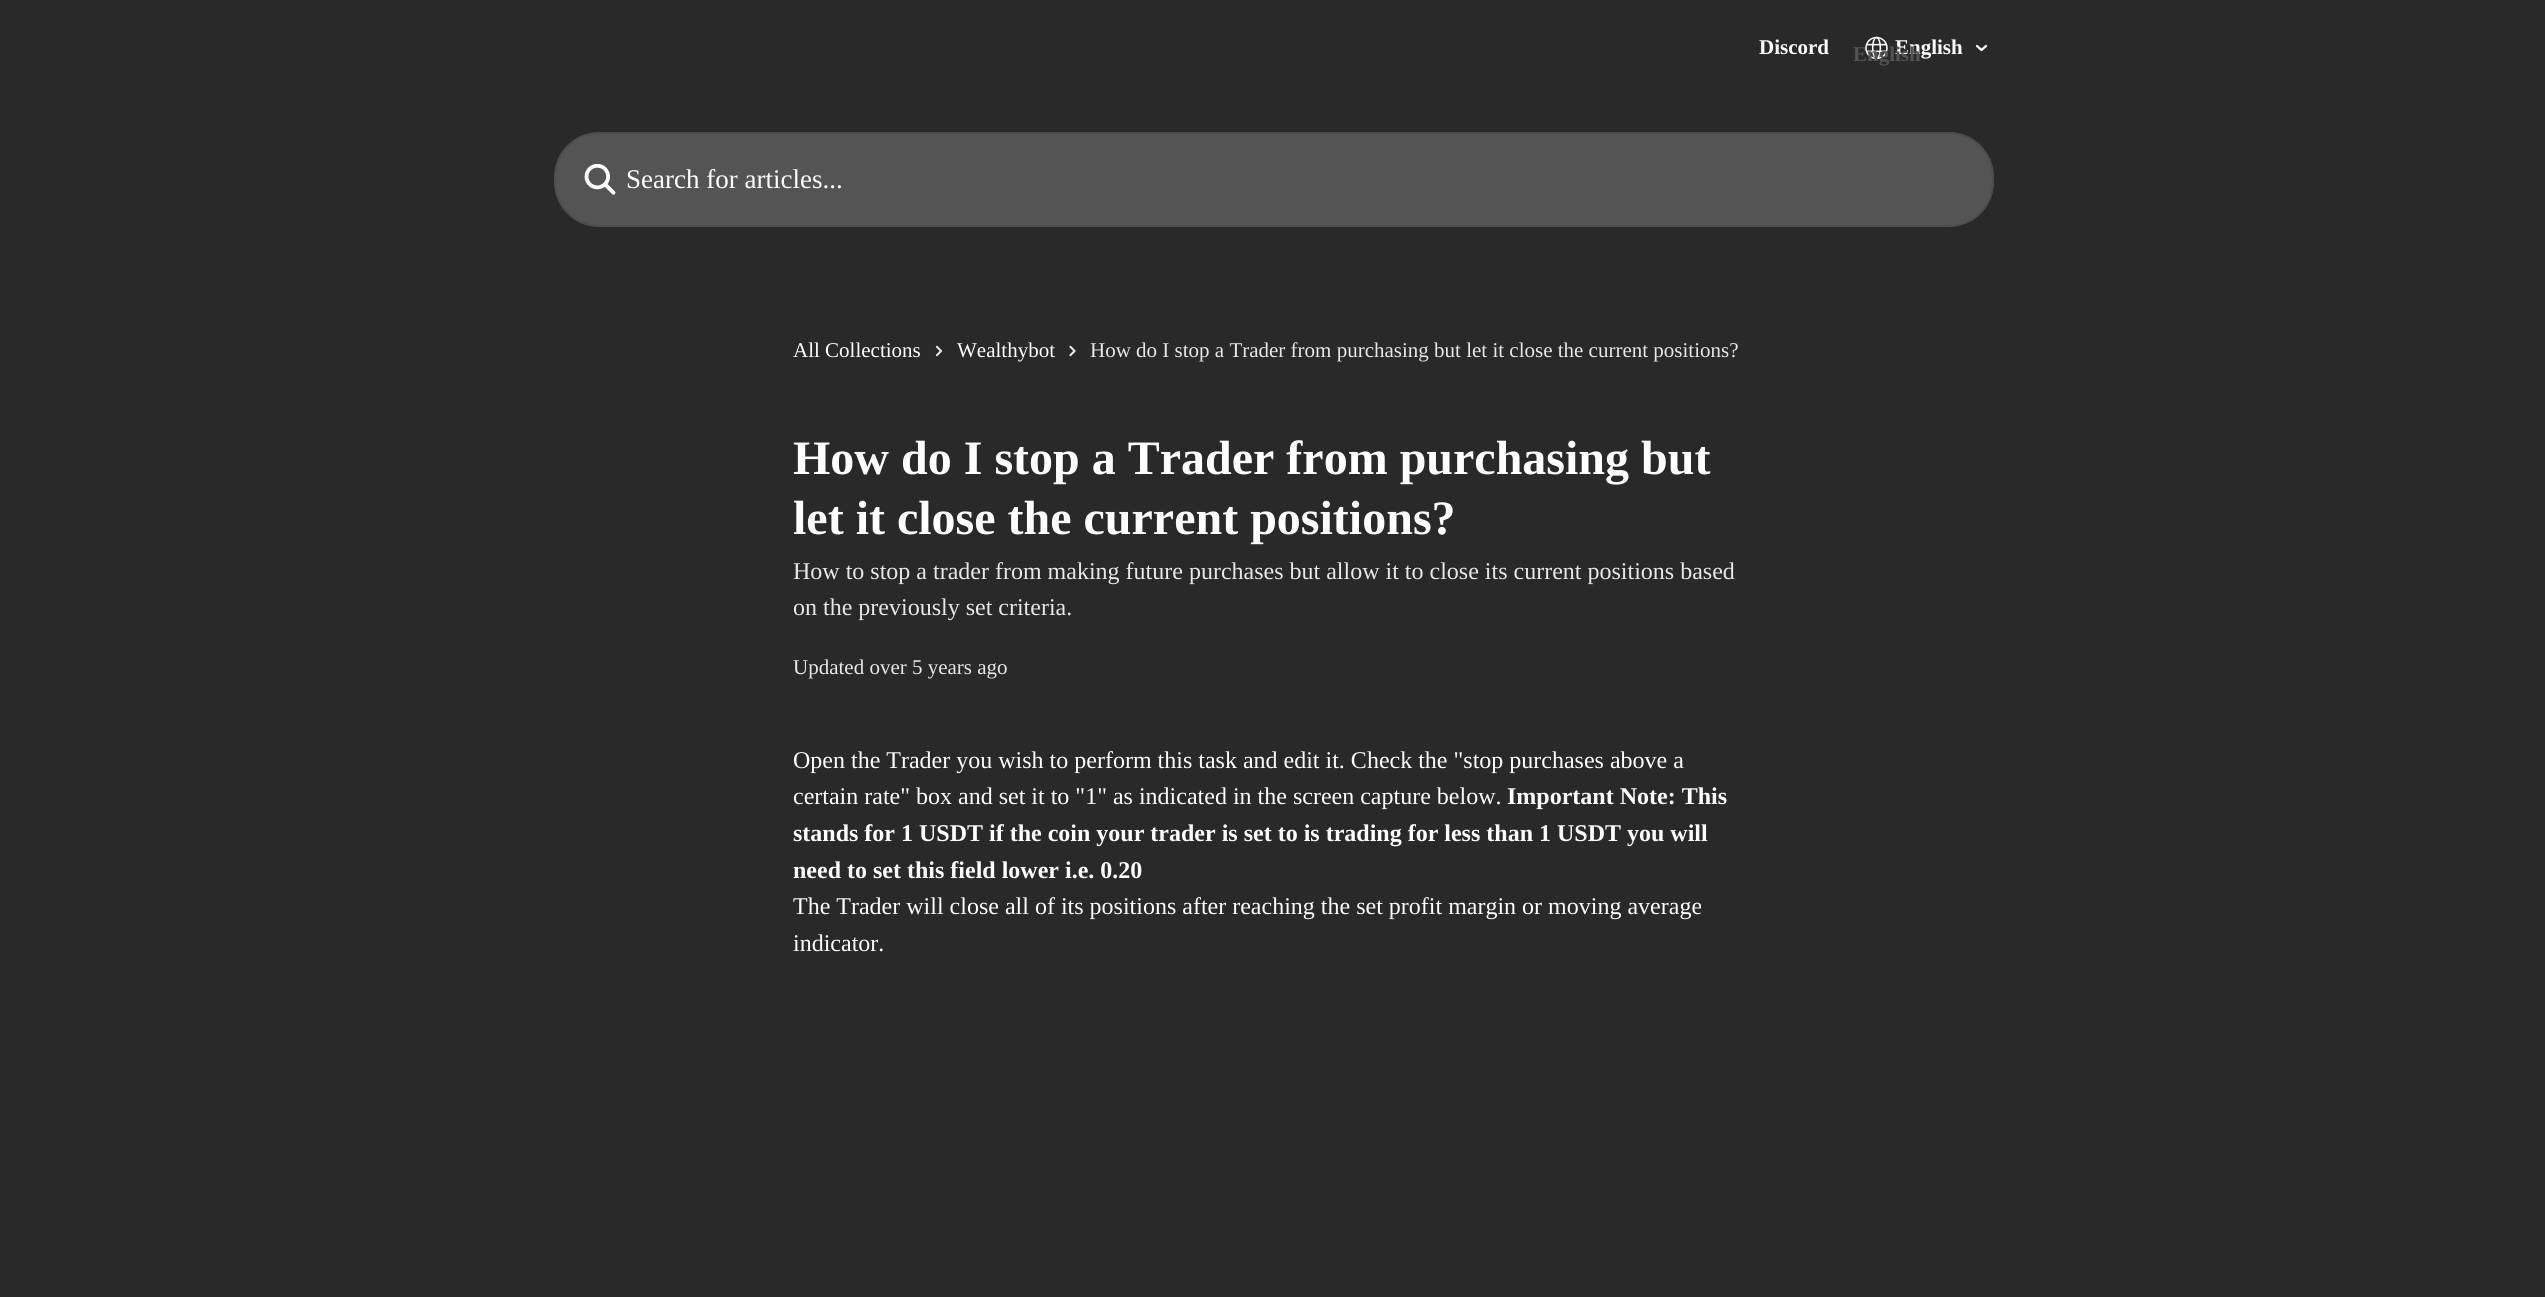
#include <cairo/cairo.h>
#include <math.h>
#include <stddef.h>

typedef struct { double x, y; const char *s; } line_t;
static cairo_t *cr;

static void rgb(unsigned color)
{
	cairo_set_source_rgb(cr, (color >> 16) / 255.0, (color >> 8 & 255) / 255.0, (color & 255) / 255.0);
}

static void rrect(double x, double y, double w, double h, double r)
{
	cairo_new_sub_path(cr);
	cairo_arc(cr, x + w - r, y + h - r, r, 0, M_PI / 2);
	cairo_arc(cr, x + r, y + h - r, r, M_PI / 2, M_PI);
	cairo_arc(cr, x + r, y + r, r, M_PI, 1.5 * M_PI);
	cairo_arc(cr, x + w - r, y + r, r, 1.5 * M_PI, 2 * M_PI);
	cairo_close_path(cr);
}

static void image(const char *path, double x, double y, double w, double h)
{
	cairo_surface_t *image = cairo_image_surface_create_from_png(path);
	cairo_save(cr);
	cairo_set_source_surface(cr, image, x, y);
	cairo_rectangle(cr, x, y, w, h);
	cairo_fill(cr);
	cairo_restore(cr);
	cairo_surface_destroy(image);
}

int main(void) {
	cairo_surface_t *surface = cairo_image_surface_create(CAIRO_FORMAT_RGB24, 2545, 1297);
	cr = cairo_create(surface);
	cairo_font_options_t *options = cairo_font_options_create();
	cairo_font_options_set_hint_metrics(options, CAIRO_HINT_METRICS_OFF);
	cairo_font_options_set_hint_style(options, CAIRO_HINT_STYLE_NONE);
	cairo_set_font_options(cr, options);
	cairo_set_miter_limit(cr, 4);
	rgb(0x292929);
	cairo_paint(cr);
	image("img/1.png", 1865, 36, 23, 24);
	cairo_new_path(cr);
	cairo_move_to(cr, 1977, 46);
	cairo_line_to(cr, 1981.5, 50);
	cairo_line_to(cr, 1986, 46);
	rgb(0xffffff);
	cairo_set_line_width(cr, 2.2);
	cairo_set_line_cap(cr, CAIRO_LINE_CAP_ROUND);
	cairo_set_line_join(cr, CAIRO_LINE_JOIN_ROUND);
	cairo_stroke(cr);
	rgb(0x545454);
	rrect(554, 132, 1440, 95, 45);
	cairo_fill(cr);
	rrect(555, 133, 1438, 93, 44);
	cairo_set_source_rgba(cr, 0, 0, 0, 0.08);
	cairo_set_line_width(cr, 2);
	cairo_set_line_cap(cr, CAIRO_LINE_CAP_BUTT);
	cairo_set_line_join(cr, CAIRO_LINE_JOIN_MITER);
	cairo_stroke(cr);
	image("img/2.png", 584, 164, 32, 31);
	image("img/3.png", 935, 345, 8, 12);
	image("img/4.png", 1069, 345, 7, 12);
	cairo_select_font_face(cr, "Liberation Serif", CAIRO_FONT_SLANT_NORMAL, CAIRO_FONT_WEIGHT_BOLD);
	cairo_set_font_size(cr, 21);
	rgb(0xffffff);
	cairo_move_to(cr, 1759, 54);
	cairo_show_text(cr, "Discord");
	cairo_move_to(cr, 1895, 54);
	cairo_show_text(cr, "English");
	rgb(0x535353);
	cairo_move_to(cr, 1853, 61);
	cairo_show_text(cr, "English");
	cairo_select_font_face(cr, "Liberation Serif", CAIRO_FONT_SLANT_NORMAL, CAIRO_FONT_WEIGHT_NORMAL);
	cairo_set_font_size(cr, 27);
	rgb(0xffffff);
	cairo_move_to(cr, 626, 188);
	cairo_show_text(cr, "Search for articles...");
	cairo_set_font_size(cr, 21);
	cairo_move_to(cr, 793, 357);
	cairo_show_text(cr, "All Collections");
	cairo_move_to(cr, 957, 357);
	cairo_show_text(cr, "Wealthybot");
	rgb(0xe8e8e8);
	cairo_move_to(cr, 1090, 357);
	cairo_show_text(cr, "How do I stop a Trader from purchasing but let it close the current positions?");
	cairo_select_font_face(cr, "Liberation Serif", CAIRO_FONT_SLANT_NORMAL, CAIRO_FONT_WEIGHT_BOLD);
	cairo_set_font_size(cr, 48);
	rgb(0xffffff);
	cairo_move_to(cr, 793, 474);
	cairo_show_text(cr, "How do I stop a Trader from purchasing but");
	cairo_move_to(cr, 793, 534);
	cairo_show_text(cr, "let it close the current positions?");
	cairo_select_font_face(cr, "Liberation Serif", CAIRO_FONT_SLANT_NORMAL, CAIRO_FONT_WEIGHT_NORMAL);
	cairo_set_font_size(cr, 24);
	rgb(0xe8e8e8);
	cairo_move_to(cr, 793, 579);
	cairo_show_text(cr, "How to stop a trader from making future purchases but allow it to close its current positions based");
	cairo_move_to(cr, 793, 615);
	cairo_show_text(cr, "on the previously set criteria.");
	cairo_set_font_size(cr, 21);
	cairo_move_to(cr, 793, 674);
	cairo_show_text(cr, "Updated over 5 years ago");
	cairo_set_font_size(cr, 24);
	rgb(0xffffff);
	cairo_move_to(cr, 793, 768);
	cairo_show_text(cr, "Open the Trader you wish to perform this task and edit it. Check the \"stop purchases above a");
	cairo_move_to(cr, 793, 804);
	cairo_show_text(cr, "certain rate\" box and set it to \"1\" as indicated in the screen capture below.");
	cairo_select_font_face(cr, "Liberation Serif", CAIRO_FONT_SLANT_NORMAL, CAIRO_FONT_WEIGHT_BOLD);
	{
		static const line_t items[] = {
			{1507, 804, "Important Note: This"},
			{793, 841, "stands for 1 USDT if the coin your trader is set to is trading for less than 1 USDT you will"},
			{793, 878, "need to set this field lower i.e. 0.20"},
		};
		for (size_t i = 0; i < sizeof items / sizeof *items; i++) {
			cairo_move_to(cr, items[i].x, items[i].y);
			cairo_show_text(cr, items[i].s);
		}
	}
	cairo_select_font_face(cr, "Liberation Serif", CAIRO_FONT_SLANT_NORMAL, CAIRO_FONT_WEIGHT_NORMAL);
	cairo_move_to(cr, 793, 914);
	cairo_show_text(cr, "The Trader will close all of its positions after reaching the set profit margin or moving average");
	cairo_move_to(cr, 793, 951);
	cairo_show_text(cr, "indicator.");
	cairo_surface_write_to_png(surface, "page.png");
	cairo_font_options_destroy(options);
	cairo_destroy(cr);
	cairo_surface_destroy(surface);
	return 0;
}
